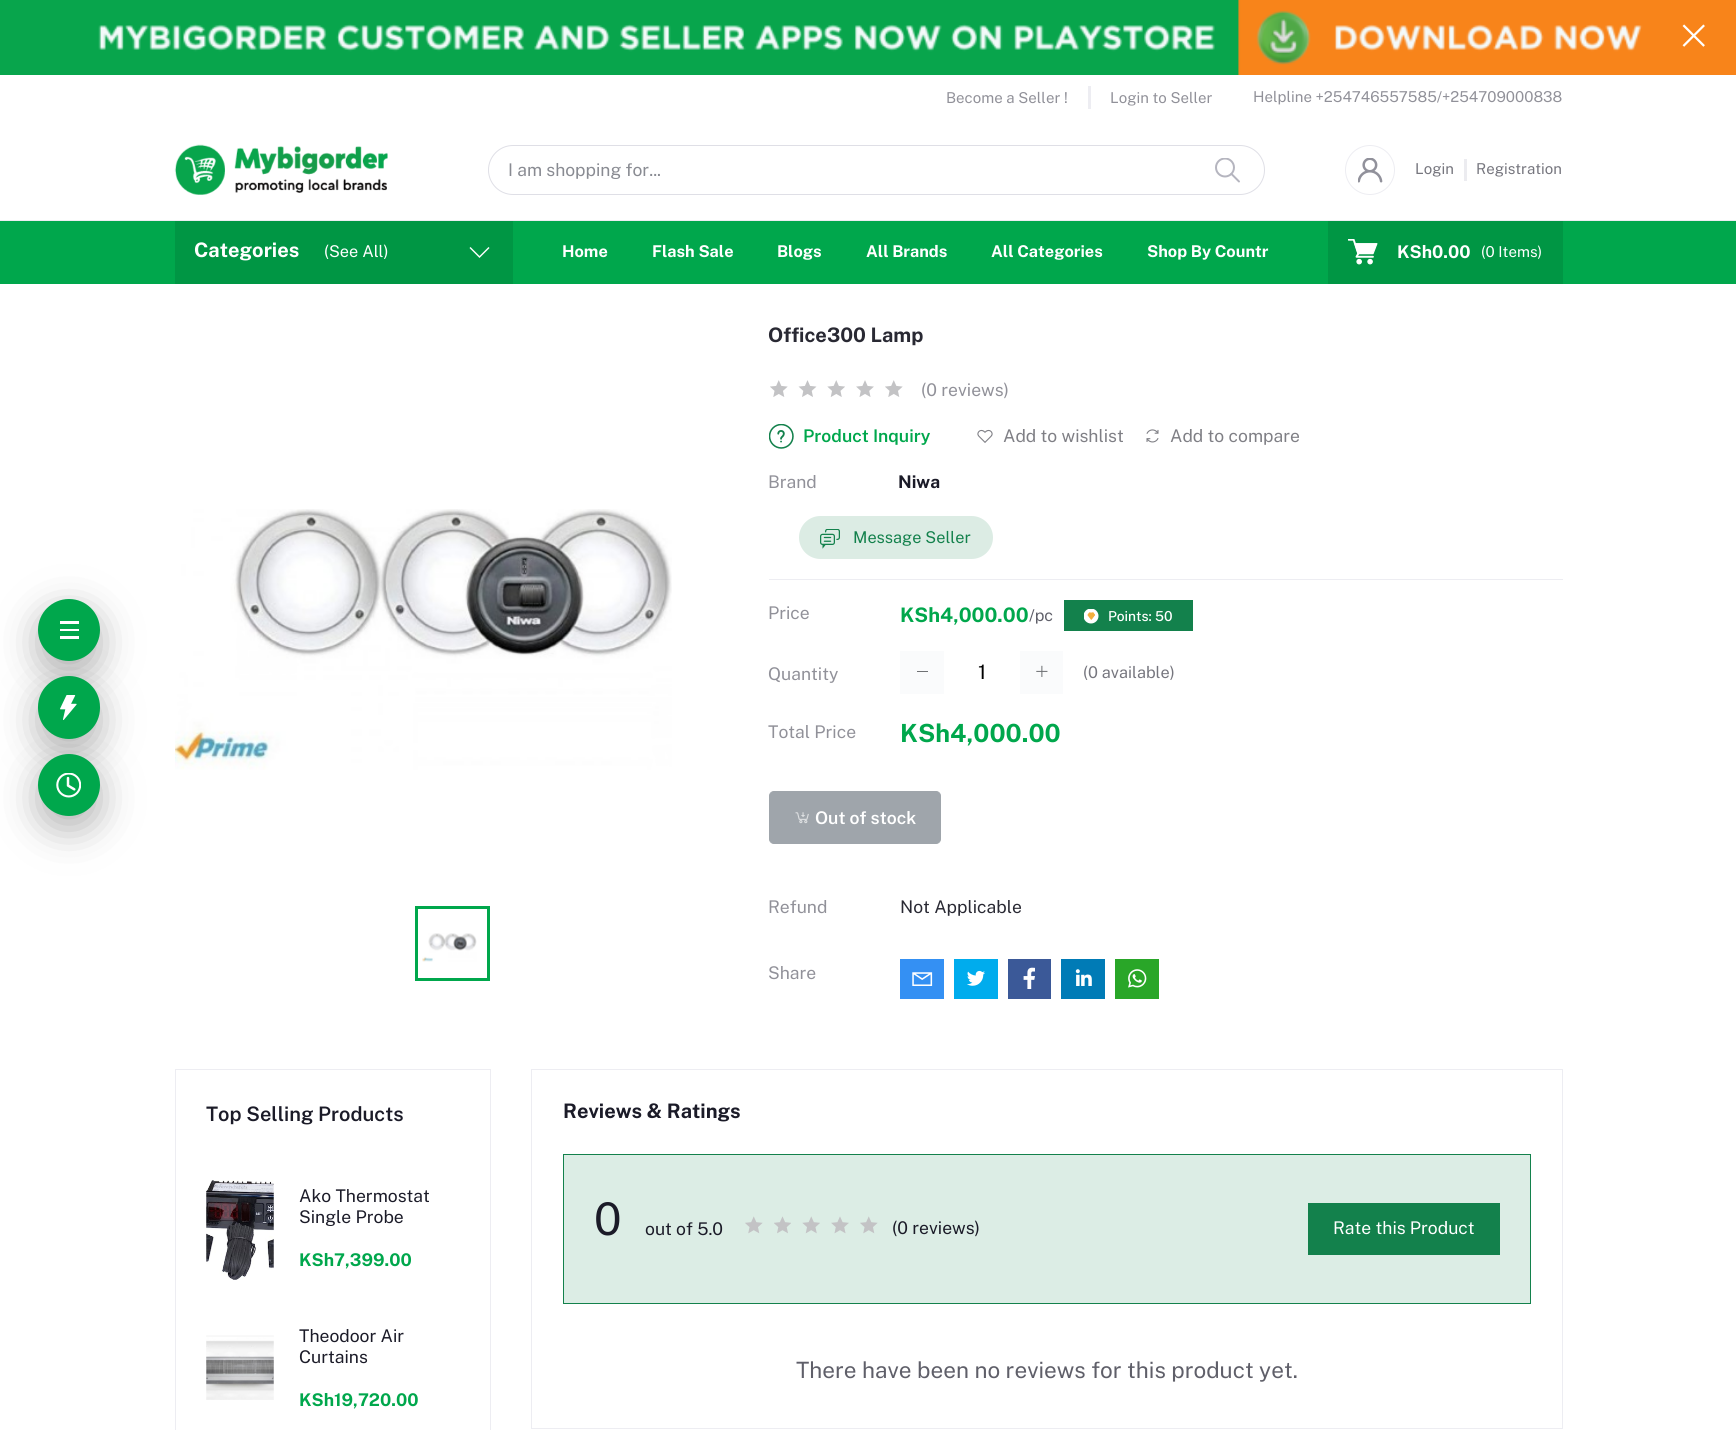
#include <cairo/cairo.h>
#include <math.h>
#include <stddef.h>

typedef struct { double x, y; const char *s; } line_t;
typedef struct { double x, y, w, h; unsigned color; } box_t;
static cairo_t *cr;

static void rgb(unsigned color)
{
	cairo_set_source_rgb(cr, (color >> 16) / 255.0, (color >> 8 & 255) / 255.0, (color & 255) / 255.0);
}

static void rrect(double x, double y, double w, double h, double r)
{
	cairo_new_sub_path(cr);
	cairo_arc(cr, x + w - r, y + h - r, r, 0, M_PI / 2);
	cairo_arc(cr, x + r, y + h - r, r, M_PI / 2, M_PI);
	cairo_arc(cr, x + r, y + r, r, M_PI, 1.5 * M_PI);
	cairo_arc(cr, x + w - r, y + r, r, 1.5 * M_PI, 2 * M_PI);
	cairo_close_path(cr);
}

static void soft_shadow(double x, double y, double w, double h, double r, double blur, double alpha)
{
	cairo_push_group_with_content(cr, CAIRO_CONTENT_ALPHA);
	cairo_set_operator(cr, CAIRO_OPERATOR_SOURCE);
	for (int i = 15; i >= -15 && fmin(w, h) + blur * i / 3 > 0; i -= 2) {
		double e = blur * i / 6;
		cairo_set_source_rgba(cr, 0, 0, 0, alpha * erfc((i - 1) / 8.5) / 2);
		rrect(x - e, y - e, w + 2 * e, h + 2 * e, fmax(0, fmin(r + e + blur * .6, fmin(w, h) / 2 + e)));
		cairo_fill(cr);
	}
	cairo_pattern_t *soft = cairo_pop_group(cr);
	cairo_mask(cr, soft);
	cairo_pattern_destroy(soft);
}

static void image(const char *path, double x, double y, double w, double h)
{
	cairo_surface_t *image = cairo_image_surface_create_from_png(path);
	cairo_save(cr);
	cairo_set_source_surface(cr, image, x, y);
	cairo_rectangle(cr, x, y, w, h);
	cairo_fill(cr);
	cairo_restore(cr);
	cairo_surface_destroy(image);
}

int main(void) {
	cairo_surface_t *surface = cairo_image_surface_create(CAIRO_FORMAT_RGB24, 1736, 1430);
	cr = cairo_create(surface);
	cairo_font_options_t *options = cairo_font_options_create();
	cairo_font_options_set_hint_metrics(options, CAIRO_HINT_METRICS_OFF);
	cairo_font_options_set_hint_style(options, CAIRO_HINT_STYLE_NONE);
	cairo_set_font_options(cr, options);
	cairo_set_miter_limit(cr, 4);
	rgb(0xffffff);
	cairo_paint(cr);
	rgb(0x696969);
	soft_shadow(38, 611, 62, 63, 31, 19, 0.5);
	soft_shadow(38, 689, 62, 62, 31, 19, 0.5);
	rgb(0x00a74c);
	cairo_arc(cr, 69, 630, 31, 0, 2 * M_PI);
	cairo_fill(cr);
	{
		static const box_t items[] = {
			{60, 629, 19, 2, 0xffffff},
			{60, 621, 19, 3, 0xffffff},
			{60, 636, 19, 3, 0xffffff},
		};
		for (size_t i = 0; i < sizeof items / sizeof *items; i++) {
			rgb(items[i].color);
			cairo_rectangle(cr, items[i].x, items[i].y, items[i].w, items[i].h);
			cairo_fill(cr);
		}
	}
	rgb(0x696969);
	soft_shadow(38, 766, 62, 63, 31, 19, 0.5);
	rgb(0x00a74c);
	rrect(38, 676, 62, 63, 31);
	cairo_fill(cr);
	image("img/1.png", 60, 695, 17, 25);
	cairo_arc(cr, 69, 785, 31, 0, 2 * M_PI);
	cairo_fill(cr);
	image("img/2.png", 56, 773, 25, 25);
	image("img/3.png", 0, 0, 1736, 75);
	image("img/4.png", 1682, 24, 23, 23);
	rgb(0xededf2);
	cairo_rectangle(cr, 1088, 86, 3, 23);
	cairo_fill(cr);
	cairo_rectangle(cr, 0, 220, 1736, 1);
	cairo_fill(cr);
	image("img/5.png", 174, 144, 214, 51);
	rrect(488.5, 145.5, 776, 49, 24.5);
	rgb(0xdfdfe6);
	cairo_set_line_width(cr, 1);
	cairo_stroke(cr);
	image("img/6.png", 1215, 158, 25, 25);
	cairo_arc(cr, 1370, 170, 24.5, 0, 2 * M_PI);
	rgb(0xededf2);
	cairo_stroke(cr);
	image("img/7.png", 1358, 158, 25, 25);
	{
		static const box_t items[] = {
			{1464, 159, 3, 22, 0xececf0},
			{0, 221, 1736, 63, 0x00a74c},
			{175, 221, 338, 63, 0x009644},
		};
		for (size_t i = 0; i < sizeof items / sizeof *items; i++) {
			rgb(items[i].color);
			cairo_rectangle(cr, items[i].x, items[i].y, items[i].w, items[i].h);
			cairo_fill(cr);
		}
	}
	rgb(0xffffff);
	cairo_new_path(cr);
	cairo_move_to(cr, 470.5, 247);
	cairo_line_to(cr, 469.5, 248);
	cairo_line_to(cr, 479.5, 258);
	cairo_line_to(cr, 489.5, 248);
	cairo_line_to(cr, 488.5, 247);
	cairo_line_to(cr, 479.5, 256);
	cairo_close_path(cr);
	cairo_fill(cr);
	rgb(0x009644);
	cairo_rectangle(cr, 1328, 221, 235, 63);
	cairo_fill(cr);
	image("img/8.png", 1348, 239, 30, 26);
	image("img/9.png", 175, 509, 497, 261);
	cairo_rectangle(cr, 416.5, 907.5, 72, 72);
	rgb(0x00a74c);
	cairo_set_line_width(cr, 3);
	cairo_stroke(cr);
	image("img/10.png", 422, 933, 55, 29);
	image("img/11.png", 770, 380, 18, 17);
	image("img/12.png", 798, 380, 19, 17);
	image("img/13.png", 827, 380, 18, 17);
	image("img/14.png", 856, 380, 18, 17);
	image("img/11.png", 885, 380, 18, 17);
	image("img/15.png", 769, 424, 25, 25);
	image("img/16.png", 977, 429, 16, 14);
	image("img/17.png", 1146, 429, 13, 14);
	rgb(0xdcece4);
	rrect(799, 516, 194, 43, 21.5);
	cairo_fill(cr);
	image("img/18.png", 820, 529, 20, 20);
	rgb(0xededf2);
	cairo_rectangle(cr, 769, 579, 794, 1);
	cairo_fill(cr);
	rgb(0x13814c);
	cairo_rectangle(cr, 1064, 600, 129, 31);
	cairo_fill(cr);
	image("img/19.png", 1084, 609, 15, 15);
	{
		static const box_t items[] = {
			{900, 651, 44, 43, 0xfafbfc},
			{917, 671, 11, 1, 0x6f7174},
			{1020, 651, 43, 43, 0xfafbfc},
		};
		for (size_t i = 0; i < sizeof items / sizeof *items; i++) {
			rgb(items[i].color);
			cairo_rectangle(cr, items[i].x, items[i].y, items[i].w, items[i].h);
			cairo_fill(cr);
		}
	}
	image("img/20.png", 1036, 665, 12, 12);
	rgb(0x9fa5ab);
	rrect(769.5, 791.5, 171, 52, 4.5);
	cairo_fill_preserve(cr);
	cairo_set_line_width(cr, 1);
	cairo_stroke(cr);
	image("img/21.png", 795, 812, 14, 12);
	rgb(0x3490f3);
	cairo_rectangle(cr, 900, 959, 44, 40);
	cairo_fill(cr);
	image("img/22.png", 912, 972, 21, 14);
	rgb(0x00aced);
	cairo_rectangle(cr, 954, 959, 44, 40);
	cairo_fill(cr);
	image("img/23.png", 967, 970, 18, 16);
	rgb(0x3b5998);
	cairo_rectangle(cr, 1008, 959, 43, 40);
	cairo_fill(cr);
	image("img/24.png", 1023, 967, 12, 22);
	rgb(0x007bb6);
	cairo_rectangle(cr, 1061, 959, 44, 40);
	cairo_fill(cr);
	image("img/25.png", 1075, 969, 17, 17);
	rgb(0x29a628);
	cairo_rectangle(cr, 1115, 959, 44, 40);
	cairo_fill(cr);
	image("img/26.png", 1128, 969, 19, 19);
	cairo_rectangle(cr, 175.5, 1069.5, 315, 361);
	rgb(0xededf2);
	cairo_stroke(cr);
	image("img/27.png", 206, 1180, 68, 100);
	image("img/28.png", 206, 1335, 68, 65);
	cairo_rectangle(cr, 531.5, 1069.5, 1031, 359);
	cairo_stroke(cr);
	rgb(0xdcede5);
	cairo_rectangle(cr, 563.5, 1154.5, 967, 149);
	cairo_fill_preserve(cr);
	rgb(0x13814c);
	cairo_stroke(cr);
	image("img/29.png", 745, 1216, 18, 18);
	image("img/30.png", 774, 1216, 17, 18);
	image("img/31.png", 802, 1216, 18, 18);
	image("img/32.png", 831, 1216, 18, 18);
	image("img/29.png", 860, 1216, 18, 18);
	cairo_rectangle(cr, 1308, 1203, 192, 52);
	cairo_fill(cr);
	cairo_select_font_face(cr, "Public Sans", CAIRO_FONT_SLANT_NORMAL, CAIRO_FONT_WEIGHT_NORMAL);
	cairo_set_font_size(cr, 15);
	rgb(0x919199);
	{
		static const line_t items[] = {
			{946, 103, "Become a Seller !"},
			{1110, 103, "Login to Seller"},
			{1253, 102, "Helpline +254746557585/+254709000838"},
		};
		for (size_t i = 0; i < sizeof items / sizeof *items; i++) {
			cairo_move_to(cr, items[i].x, items[i].y);
			cairo_show_text(cr, items[i].s);
		}
	}
	cairo_set_font_size(cr, 17.5);
	rgb(0x898b92);
	cairo_move_to(cr, 508, 176);
	cairo_show_text(cr, "I am shopping for...");
	cairo_set_font_size(cr, 15);
	rgb(0x76767e);
	cairo_move_to(cr, 1415, 174);
	cairo_show_text(cr, "Login");
	cairo_move_to(cr, 1476, 174);
	cairo_show_text(cr, "Registration");
	cairo_select_font_face(cr, "Public Sans", CAIRO_FONT_SLANT_NORMAL, CAIRO_FONT_WEIGHT_BOLD);
	cairo_set_font_size(cr, 20);
	rgb(0xffffff);
	cairo_move_to(cr, 194, 257);
	cairo_show_text(cr, "Categories");
	cairo_select_font_face(cr, "Public Sans", CAIRO_FONT_SLANT_NORMAL, CAIRO_FONT_WEIGHT_NORMAL);
	cairo_set_font_size(cr, 16.25);
	cairo_move_to(cr, 324, 257);
	cairo_show_text(cr, "(See All)");
	cairo_select_font_face(cr, "Public Sans", CAIRO_FONT_SLANT_NORMAL, CAIRO_FONT_WEIGHT_BOLD);
	{
		static const line_t items[] = {
			{562, 257, "Home"},
			{652, 257, "Flash Sale"},
			{777, 257, "Blogs"},
			{866, 257, "All Brands"},
			{991, 257, "All Categories"},
			{1147, 257, "Shop By Countr"},
		};
		for (size_t i = 0; i < sizeof items / sizeof *items; i++) {
			cairo_move_to(cr, items[i].x, items[i].y);
			cairo_show_text(cr, items[i].s);
		}
	}
	cairo_set_font_size(cr, 17.5);
	cairo_move_to(cr, 1397, 258);
	cairo_show_text(cr, "KSh0.00");
	cairo_select_font_face(cr, "Public Sans", CAIRO_FONT_SLANT_NORMAL, CAIRO_FONT_WEIGHT_NORMAL);
	cairo_set_font_size(cr, 15);
	cairo_move_to(cr, 1481, 257);
	cairo_show_text(cr, "(0 Items)");
	cairo_select_font_face(cr, "Public Sans", CAIRO_FONT_SLANT_NORMAL, CAIRO_FONT_WEIGHT_BOLD);
	cairo_set_font_size(cr, 20);
	rgb(0x292933);
	cairo_move_to(cr, 768, 342);
	cairo_show_text(cr, "Office300 Lamp");
	cairo_select_font_face(cr, "Public Sans", CAIRO_FONT_SLANT_NORMAL, CAIRO_FONT_WEIGHT_NORMAL);
	cairo_set_font_size(cr, 17.5);
	rgb(0x919199);
	cairo_move_to(cr, 921, 396);
	cairo_show_text(cr, "(0 reviews)");
	cairo_select_font_face(cr, "Public Sans SemiBold", CAIRO_FONT_SLANT_NORMAL, CAIRO_FONT_WEIGHT_NORMAL);
	rgb(0x00a74c);
	cairo_move_to(cr, 803, 442);
	cairo_show_text(cr, "Product Inquiry");
	cairo_select_font_face(cr, "Public Sans", CAIRO_FONT_SLANT_NORMAL, CAIRO_FONT_WEIGHT_NORMAL);
	rgb(0x7f7f85);
	cairo_move_to(cr, 1003, 442);
	cairo_show_text(cr, "Add to wishlist");
	cairo_move_to(cr, 1170, 442);
	cairo_show_text(cr, "Add to compare");
	rgb(0x919199);
	cairo_move_to(cr, 768, 488);
	cairo_show_text(cr, "Brand");
	cairo_select_font_face(cr, "Public Sans", CAIRO_FONT_SLANT_NORMAL, CAIRO_FONT_WEIGHT_BOLD);
	rgb(0x1b1b28);
	cairo_move_to(cr, 898, 488);
	cairo_show_text(cr, "Niwa");
	cairo_select_font_face(cr, "Public Sans", CAIRO_FONT_SLANT_NORMAL, CAIRO_FONT_WEIGHT_NORMAL);
	cairo_set_font_size(cr, 16.25);
	rgb(0x13814c);
	cairo_move_to(cr, 853, 543);
	cairo_show_text(cr, "Message Seller");
	cairo_set_font_size(cr, 17.5);
	rgb(0x919199);
	cairo_move_to(cr, 768, 619);
	cairo_show_text(cr, "Price");
	cairo_select_font_face(cr, "Public Sans", CAIRO_FONT_SLANT_NORMAL, CAIRO_FONT_WEIGHT_BOLD);
	cairo_set_font_size(cr, 20);
	rgb(0x00a74c);
	cairo_move_to(cr, 900, 622);
	cairo_show_text(cr, "KSh4,000.00");
	cairo_select_font_face(cr, "Public Sans", CAIRO_FONT_SLANT_NORMAL, CAIRO_FONT_WEIGHT_NORMAL);
	cairo_set_font_size(cr, 16.25);
	rgb(0x5f5f69);
	cairo_move_to(cr, 1029, 621);
	cairo_show_text(cr, "/pc");
	cairo_select_font_face(cr, "Public Sans Medium", CAIRO_FONT_SLANT_NORMAL, CAIRO_FONT_WEIGHT_NORMAL);
	cairo_set_font_size(cr, 13.75);
	rgb(0xffffff);
	cairo_move_to(cr, 1108, 621);
	cairo_show_text(cr, "Points: 50");
	cairo_select_font_face(cr, "Public Sans", CAIRO_FONT_SLANT_NORMAL, CAIRO_FONT_WEIGHT_NORMAL);
	cairo_set_font_size(cr, 17.5);
	rgb(0x919199);
	cairo_move_to(cr, 768, 680);
	cairo_show_text(cr, "Quantity");
	cairo_set_font_size(cr, 20);
	rgb(0x000000);
	cairo_move_to(cr, 978, 679);
	cairo_show_text(cr, "1");
	cairo_set_font_size(cr, 16.25);
	rgb(0x76767e);
	cairo_move_to(cr, 1083, 678);
	cairo_show_text(cr, "(0 available)");
	cairo_set_font_size(cr, 17.5);
	rgb(0x919199);
	cairo_move_to(cr, 768, 738);
	cairo_show_text(cr, "Total Price");
	cairo_select_font_face(cr, "Public Sans", CAIRO_FONT_SLANT_NORMAL, CAIRO_FONT_WEIGHT_BOLD);
	cairo_set_font_size(cr, 25);
	rgb(0x00a74c);
	cairo_move_to(cr, 900, 742);
	cairo_show_text(cr, "KSh4,000.00");
	cairo_select_font_face(cr, "Public Sans SemiBold", CAIRO_FONT_SLANT_NORMAL, CAIRO_FONT_WEIGHT_NORMAL);
	cairo_set_font_size(cr, 17.5);
	rgb(0xffffff);
	cairo_move_to(cr, 815, 824);
	cairo_show_text(cr, "Out of stock");
	cairo_select_font_face(cr, "Public Sans", CAIRO_FONT_SLANT_NORMAL, CAIRO_FONT_WEIGHT_NORMAL);
	rgb(0x919199);
	cairo_move_to(cr, 768, 913);
	cairo_show_text(cr, "Refund");
	rgb(0x292933);
	cairo_move_to(cr, 900, 913);
	cairo_show_text(cr, "Not Applicable");
	rgb(0x919199);
	cairo_move_to(cr, 768, 979);
	cairo_show_text(cr, "Share");
	cairo_select_font_face(cr, "Public Sans SemiBold", CAIRO_FONT_SLANT_NORMAL, CAIRO_FONT_WEIGHT_NORMAL);
	cairo_set_font_size(cr, 20);
	rgb(0x1b1b28);
	cairo_move_to(cr, 206, 1121);
	cairo_show_text(cr, "Top Selling Products");
	cairo_select_font_face(cr, "Public Sans", CAIRO_FONT_SLANT_NORMAL, CAIRO_FONT_WEIGHT_NORMAL);
	cairo_set_font_size(cr, 17.5);
	cairo_move_to(cr, 299, 1202);
	cairo_show_text(cr, "Ako Thermostat");
	cairo_move_to(cr, 299, 1223);
	cairo_show_text(cr, "Single Probe");
	cairo_select_font_face(cr, "Public Sans", CAIRO_FONT_SLANT_NORMAL, CAIRO_FONT_WEIGHT_BOLD);
	rgb(0x00a74c);
	cairo_move_to(cr, 299, 1266);
	cairo_show_text(cr, "KSh7,399.00");
	cairo_select_font_face(cr, "Public Sans", CAIRO_FONT_SLANT_NORMAL, CAIRO_FONT_WEIGHT_NORMAL);
	rgb(0x1b1b28);
	cairo_move_to(cr, 299, 1342);
	cairo_show_text(cr, "Theodoor Air");
	cairo_move_to(cr, 299, 1363);
	cairo_show_text(cr, "Curtains");
	cairo_select_font_face(cr, "Public Sans", CAIRO_FONT_SLANT_NORMAL, CAIRO_FONT_WEIGHT_BOLD);
	rgb(0x00a74c);
	cairo_move_to(cr, 299, 1406);
	cairo_show_text(cr, "KSh19,720.00");
	cairo_set_font_size(cr, 20);
	rgb(0x1b1b28);
	cairo_move_to(cr, 563, 1118);
	cairo_show_text(cr, "Reviews & Ratings");
	cairo_select_font_face(cr, "Public Sans", CAIRO_FONT_SLANT_NORMAL, CAIRO_FONT_WEIGHT_NORMAL);
	cairo_set_font_size(cr, 45);
	cairo_move_to(cr, 594, 1235);
	cairo_show_text(cr, "0");
	cairo_set_font_size(cr, 17.5);
	cairo_move_to(cr, 645, 1235);
	cairo_show_text(cr, "out of 5.0");
	cairo_move_to(cr, 892, 1234);
	cairo_show_text(cr, "(0 reviews)");
	rgb(0xffffff);
	cairo_move_to(cr, 1333, 1234);
	cairo_show_text(cr, "Rate this Product");
	cairo_set_font_size(cr, 22.5);
	rgb(0x5f5f69);
	cairo_move_to(cr, 796, 1378);
	cairo_show_text(cr, "There have been no reviews for this product yet.");
	cairo_surface_write_to_png(surface, "page.png");
	cairo_font_options_destroy(options);
	cairo_destroy(cr);
	cairo_surface_destroy(surface);
	return 0;
}
